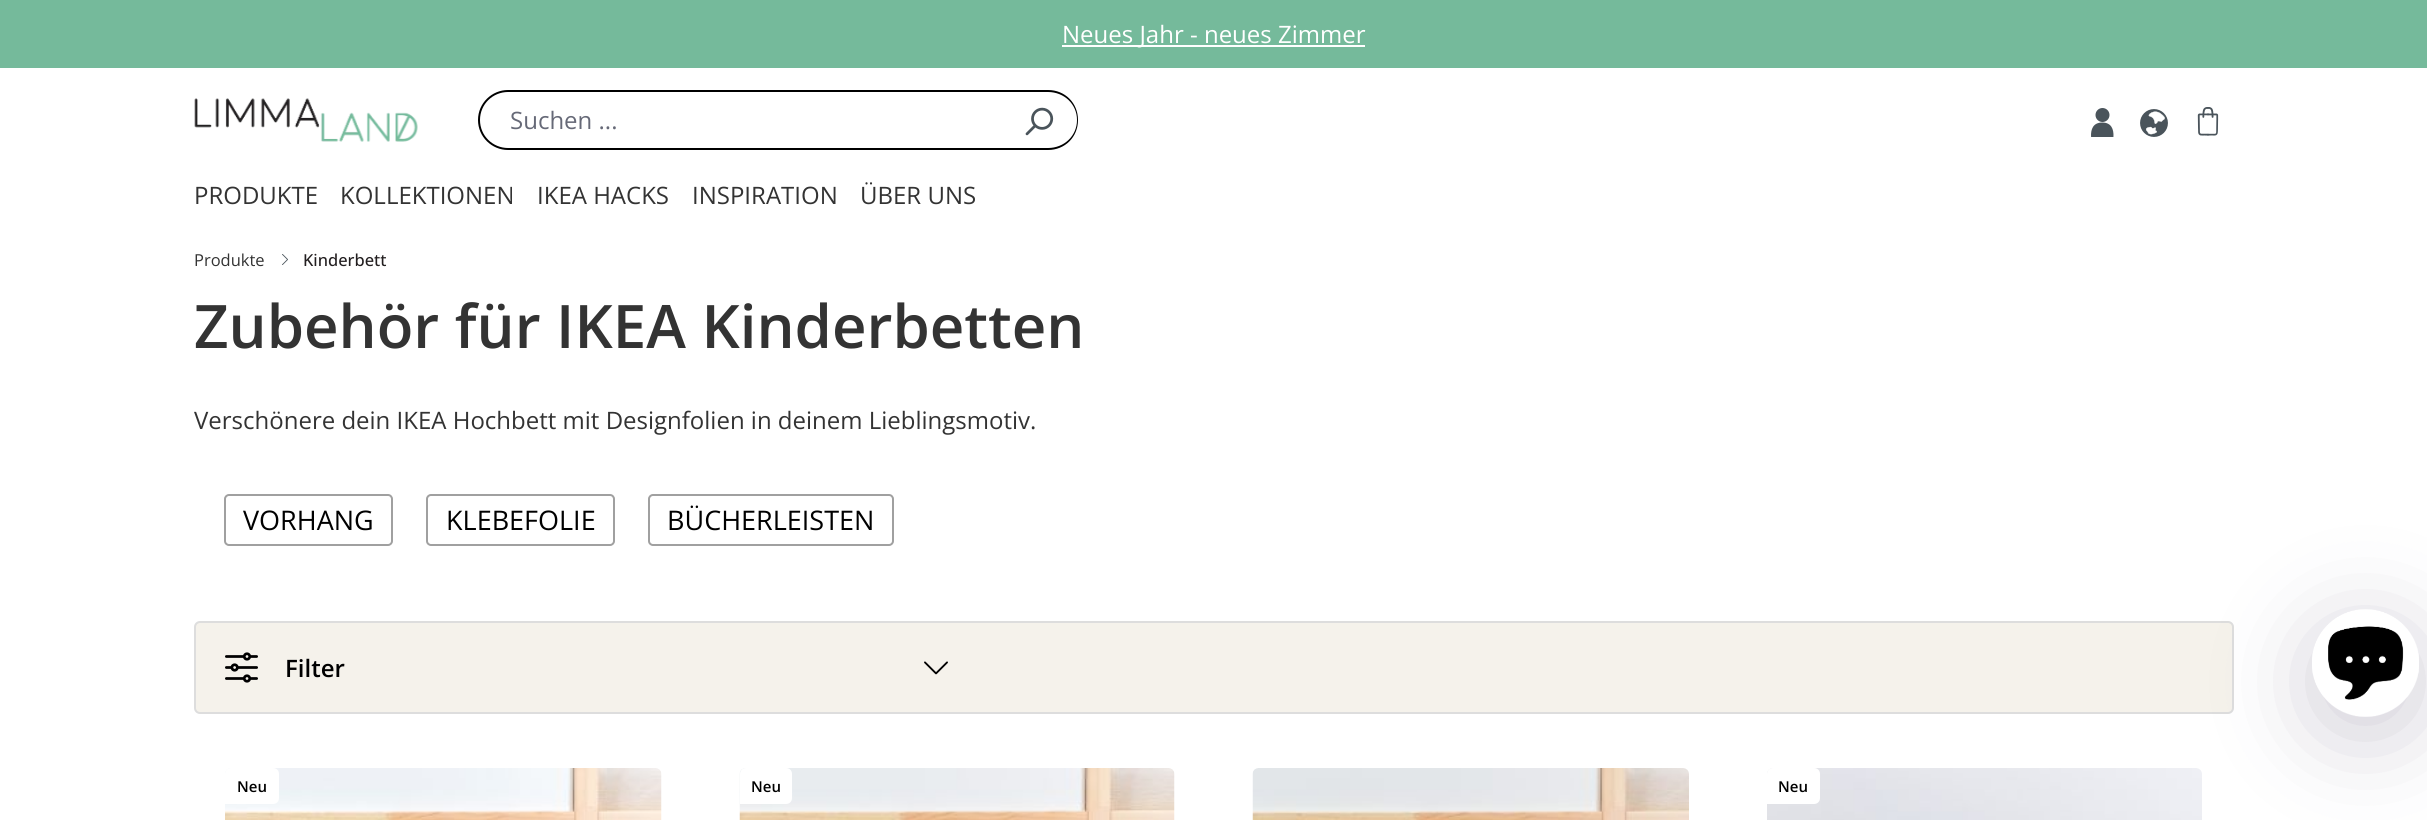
#include <cairo/cairo.h>
#include <math.h>
#include <stddef.h>

typedef struct { double x, y; const char *s; } line_t;
static cairo_t *cr;

static void rgb(unsigned color)
{
	cairo_set_source_rgb(cr, (color >> 16) / 255.0, (color >> 8 & 255) / 255.0, (color & 255) / 255.0);
}

static void rrect(double x, double y, double w, double h, double r)
{
	cairo_new_sub_path(cr);
	cairo_arc(cr, x + w - r, y + h - r, r, 0, M_PI / 2);
	cairo_arc(cr, x + r, y + h - r, r, M_PI / 2, M_PI);
	cairo_arc(cr, x + r, y + r, r, M_PI, 1.5 * M_PI);
	cairo_arc(cr, x + w - r, y + r, r, 1.5 * M_PI, 2 * M_PI);
	cairo_close_path(cr);
}

static void soft_shadow(double x, double y, double w, double h, double r, double blur, double alpha)
{
	cairo_push_group_with_content(cr, CAIRO_CONTENT_ALPHA);
	cairo_set_operator(cr, CAIRO_OPERATOR_SOURCE);
	for (int i = 15; i >= -15 && fmin(w, h) + blur * i / 3 > 0; i -= 2) {
		double e = blur * i / 6;
		cairo_set_source_rgba(cr, 0, 0, 0, alpha * erfc((i - 1) / 8.5) / 2);
		rrect(x - e, y - e, w + 2 * e, h + 2 * e, fmax(0, fmin(r + e + blur * .6, fmin(w, h) / 2 + e)));
		cairo_fill(cr);
	}
	cairo_pattern_t *soft = cairo_pop_group(cr);
	cairo_mask(cr, soft);
	cairo_pattern_destroy(soft);
}

static void image(const char *path, double x, double y, double w, double h)
{
	cairo_surface_t *image = cairo_image_surface_create_from_png(path);
	cairo_save(cr);
	cairo_set_source_surface(cr, image, x, y);
	cairo_rectangle(cr, x, y, w, h);
	cairo_fill(cr);
	cairo_restore(cr);
	cairo_surface_destroy(image);
}

int main(void) {
	cairo_surface_t *surface = cairo_image_surface_create(CAIRO_FORMAT_RGB24, 2427, 820);
	cr = cairo_create(surface);
	cairo_font_options_t *options = cairo_font_options_create();
	cairo_font_options_set_hint_metrics(options, CAIRO_HINT_METRICS_OFF);
	cairo_font_options_set_hint_style(options, CAIRO_HINT_STYLE_NONE);
	cairo_set_font_options(cr, options);
	cairo_set_miter_limit(cr, 4);
	rgb(0xffffff);
	cairo_paint(cr);
	rgb(0x75ba9b);
	cairo_rectangle(cr, 0, 0, 2427, 68);
	cairo_fill(cr);
	rgb(0xffffff);
	cairo_rectangle(cr, 1062, 45, 303, 2);
	cairo_fill(cr);
	image("img/1.png", 194, 98, 224, 44);
	rgb(0x000000);
	cairo_set_fill_rule(cr, CAIRO_FILL_RULE_EVEN_ODD);
	cairo_new_path(cr);
	cairo_move_to(cr, 508, 90);
	cairo_line_to(cr, 1000, 90);
	cairo_line_to(cr, 1000, 150);
	cairo_line_to(cr, 508, 150);
	cairo_curve_to(cr, 492, 150, 478, 137, 478, 120);
	cairo_curve_to(cr, 478, 103, 492, 90, 508, 90);
	cairo_close_path(cr);
	cairo_move_to(cr, 508, 92);
	cairo_line_to(cr, 1000, 92);
	cairo_line_to(cr, 1000, 148);
	cairo_line_to(cr, 508, 148);
	cairo_curve_to(cr, 493, 148, 480, 136, 480, 120);
	cairo_curve_to(cr, 480, 104, 493, 92, 508, 92);
	cairo_close_path(cr);
	cairo_fill(cr);
	cairo_new_path(cr);
	cairo_move_to(cr, 999, 90);
	cairo_line_to(cr, 1048, 90);
	cairo_curve_to(cr, 1065, 90, 1078, 103, 1078, 120);
	cairo_curve_to(cr, 1078, 137, 1065, 150, 1048, 150);
	cairo_line_to(cr, 999, 150);
	cairo_close_path(cr);
	cairo_move_to(cr, 999, 92);
	cairo_line_to(cr, 1048, 92);
	cairo_curve_to(cr, 1064, 92, 1077, 104, 1077, 120);
	cairo_curve_to(cr, 1077, 136, 1064, 148, 1048, 148);
	cairo_line_to(cr, 999, 148);
	cairo_close_path(cr);
	cairo_fill(cr);
	image("img/2.png", 1025, 107, 29, 29);
	image("img/3.png", 2091, 108, 23, 29);
	image("img/4.png", 2140, 109, 28, 28);
	image("img/5.png", 2197, 107, 22, 29);
	image("img/6.png", 282, 254, 6, 11);
	rrect(225, 495, 167, 50, 4);
	rgb(0xa0a0a0);
	cairo_stroke(cr);
	rrect(427, 495, 187, 50, 4);
	cairo_stroke(cr);
	rrect(649, 495, 244, 50, 4);
	cairo_stroke(cr);
	rgb(0xf5f2eb);
	rrect(195, 622, 2038, 91, 5);
	cairo_fill_preserve(cr);
	rgb(0xdddddd);
	cairo_stroke(cr);
	image("img/7.png", 225, 652, 33, 31);
	image("img/8.png", 924, 661, 24, 14);
	image("img/9.png", 225, 768, 437, 52);
	rgb(0xffffff);
	cairo_new_path(cr);
	cairo_move_to(cr, 231, 768);
	cairo_line_to(cr, 273, 768);
	cairo_curve_to(cr, 276.5, 768, 279, 770.5, 279, 774);
	cairo_line_to(cr, 279, 798);
	cairo_curve_to(cr, 279, 801.5, 276.5, 804, 273, 804);
	cairo_line_to(cr, 225, 804);
	cairo_line_to(cr, 225, 774);
	cairo_curve_to(cr, 225, 770.5, 227.5, 768, 231, 768);
	cairo_close_path(cr);
	cairo_fill(cr);
	image("img/10.png", 739, 768, 436, 52);
	cairo_new_path(cr);
	cairo_move_to(cr, 746, 768);
	cairo_line_to(cr, 786, 768);
	cairo_curve_to(cr, 789.5, 768, 792, 770.5, 792, 774);
	cairo_line_to(cr, 792, 798);
	cairo_curve_to(cr, 792, 801.5, 789.5, 804, 786, 804);
	cairo_line_to(cr, 740, 804);
	cairo_line_to(cr, 740, 774);
	cairo_curve_to(cr, 740, 770.5, 742.5, 768, 746, 768);
	cairo_close_path(cr);
	cairo_fill(cr);
	image("img/11.png", 1252, 768, 437, 52);
	image("img/12.png", 1767, 768, 435, 52);
	cairo_new_path(cr);
	cairo_move_to(cr, 1773, 768);
	cairo_line_to(cr, 1814, 768);
	cairo_curve_to(cr, 1817.5, 768, 1820, 770.5, 1820, 774);
	cairo_line_to(cr, 1820, 798);
	cairo_curve_to(cr, 1820, 801.5, 1817.5, 804, 1814, 804);
	cairo_line_to(cr, 1767, 804);
	cairo_line_to(cr, 1767, 774);
	cairo_curve_to(cr, 1767, 770.5, 1769.5, 768, 1773, 768);
	cairo_close_path(cr);
	cairo_fill(cr);
	rgb(0x3e2f59);
	soft_shadow(2313, 629, 105, 105, 52.5, 48, 0.24);
	image("img/13.png", 2312, 609, 107, 108);
	cairo_select_font_face(cr, "Open Sans", CAIRO_FONT_SLANT_NORMAL, CAIRO_FONT_WEIGHT_NORMAL);
	cairo_set_font_size(cr, 24);
	rgb(0xffffff);
	cairo_move_to(cr, 1062, 43);
	cairo_show_text(cr, "Neues Jahr - neues Zimmer");
	rgb(0x666977);
	cairo_move_to(cr, 510, 129);
	cairo_show_text(cr, "Suchen ...");
	rgb(0x333333);
	{
		static const line_t items[] = {
			{194, 204, "PRODUKTE"},
			{340, 204, "KOLLEKTIONEN"},
			{537, 204, "IKEA HACKS"},
			{692, 204, "INSPIRATION"},
			{860, 204, "ÜBER UNS"},
		};
		for (size_t i = 0; i < sizeof items / sizeof *items; i++) {
			cairo_move_to(cr, items[i].x, items[i].y);
			cairo_show_text(cr, items[i].s);
		}
	}
	cairo_set_font_size(cr, 16.5);
	cairo_move_to(cr, 194, 266);
	cairo_show_text(cr, "Produkte");
	cairo_select_font_face(cr, "Open Sans Medium", CAIRO_FONT_SLANT_NORMAL, CAIRO_FONT_WEIGHT_NORMAL);
	rgb(0x231f20);
	cairo_move_to(cr, 303, 266);
	cairo_show_text(cr, "Kinderbett");
	cairo_select_font_face(cr, "Open Sans SemiBold", CAIRO_FONT_SLANT_NORMAL, CAIRO_FONT_WEIGHT_NORMAL);
	cairo_set_font_size(cr, 60);
	rgb(0x333333);
	cairo_move_to(cr, 194, 348);
	cairo_show_text(cr, "Zubehör für IKEA Kinderbetten");
	cairo_select_font_face(cr, "Open Sans", CAIRO_FONT_SLANT_NORMAL, CAIRO_FONT_WEIGHT_NORMAL);
	cairo_set_font_size(cr, 24);
	cairo_move_to(cr, 194, 429);
	cairo_show_text(cr, "Verschönere dein IKEA Hochbett mit Designfolien in deinem Lieblingsmotiv.");
	cairo_set_font_size(cr, 27);
	rgb(0x000000);
	{
		static const line_t items[] = {
			{243, 530, "VORHANG"},
			{446, 530, "KLEBEFOLIE"},
			{667, 530, "BÜCHERLEISTEN"},
		};
		for (size_t i = 0; i < sizeof items / sizeof *items; i++) {
			cairo_move_to(cr, items[i].x, items[i].y);
			cairo_show_text(cr, items[i].s);
		}
	}
	cairo_select_font_face(cr, "Open Sans SemiBold", CAIRO_FONT_SLANT_NORMAL, CAIRO_FONT_WEIGHT_NORMAL);
	cairo_set_font_size(cr, 24);
	cairo_move_to(cr, 285, 677);
	cairo_show_text(cr, "Filter");
	cairo_set_font_size(cr, 15);
	{
		static const line_t items[] = {
			{237, 792, "Neu"},
			{751, 792, "Neu"},
			{1778, 792, "Neu"},
		};
		for (size_t i = 0; i < sizeof items / sizeof *items; i++) {
			cairo_move_to(cr, items[i].x, items[i].y);
			cairo_show_text(cr, items[i].s);
		}
	}
	cairo_surface_write_to_png(surface, "page.png");
	cairo_font_options_destroy(options);
	cairo_destroy(cr);
	cairo_surface_destroy(surface);
	return 0;
}
